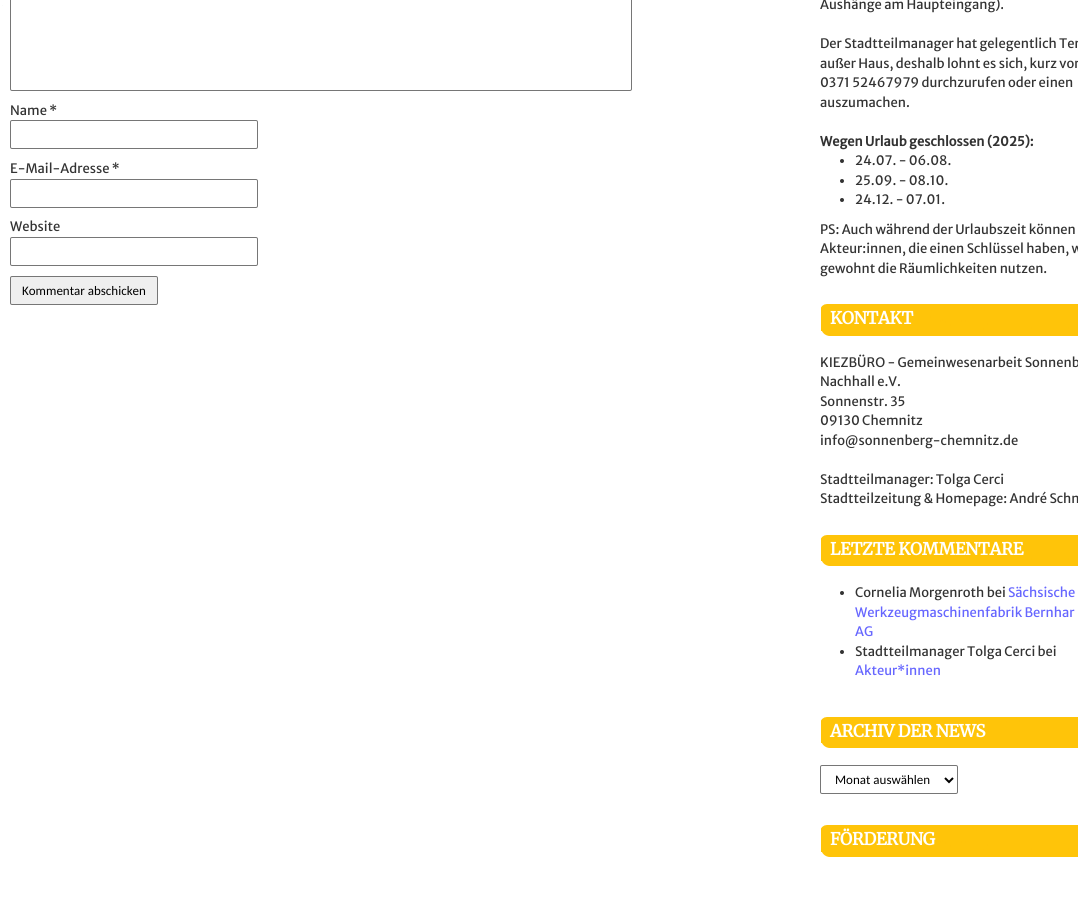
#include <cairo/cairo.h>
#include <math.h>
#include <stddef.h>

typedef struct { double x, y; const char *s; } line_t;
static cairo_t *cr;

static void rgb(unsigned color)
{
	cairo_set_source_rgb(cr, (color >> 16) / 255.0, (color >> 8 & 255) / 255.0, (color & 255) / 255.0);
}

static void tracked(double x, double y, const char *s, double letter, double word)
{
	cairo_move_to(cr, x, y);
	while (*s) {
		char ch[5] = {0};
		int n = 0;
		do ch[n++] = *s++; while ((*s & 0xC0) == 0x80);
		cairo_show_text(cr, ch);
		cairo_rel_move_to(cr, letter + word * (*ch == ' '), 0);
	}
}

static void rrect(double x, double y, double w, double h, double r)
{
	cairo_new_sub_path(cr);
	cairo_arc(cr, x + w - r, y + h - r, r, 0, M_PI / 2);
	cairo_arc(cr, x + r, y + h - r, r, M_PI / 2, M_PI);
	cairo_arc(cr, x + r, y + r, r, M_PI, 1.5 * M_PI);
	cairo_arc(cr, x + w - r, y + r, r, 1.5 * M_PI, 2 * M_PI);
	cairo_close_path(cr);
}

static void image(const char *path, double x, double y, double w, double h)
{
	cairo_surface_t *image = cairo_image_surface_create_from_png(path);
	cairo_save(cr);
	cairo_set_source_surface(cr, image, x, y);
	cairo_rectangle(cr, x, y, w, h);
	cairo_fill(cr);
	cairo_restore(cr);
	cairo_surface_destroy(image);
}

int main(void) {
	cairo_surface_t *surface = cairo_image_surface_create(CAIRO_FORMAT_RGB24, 1078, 901);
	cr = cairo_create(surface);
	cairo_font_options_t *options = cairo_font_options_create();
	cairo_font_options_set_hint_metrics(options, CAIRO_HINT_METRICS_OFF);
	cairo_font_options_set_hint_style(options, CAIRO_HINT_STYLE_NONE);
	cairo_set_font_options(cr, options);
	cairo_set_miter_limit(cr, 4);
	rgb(0xffffff);
	cairo_paint(cr);
	rgb(0xfafafa);
	cairo_rectangle(cr, 2, 5, 1, 1);
	cairo_fill(cr);
	rrect(10.5, -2.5, 621, 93, 1.5);
	rgb(0x767676);
	cairo_set_line_width(cr, 1);
	cairo_stroke(cr);
	rrect(10.5, 120.5, 247, 28, 1.5);
	cairo_stroke(cr);
	rrect(10.5, 179.5, 247, 28, 1.5);
	cairo_stroke(cr);
	rrect(10.5, 237.5, 247, 28, 1.5);
	cairo_stroke(cr);
	rgb(0xefefef);
	rrect(10.5, 276.5, 147, 28, 1.5);
	cairo_fill_preserve(cr);
	rgb(0x767676);
	cairo_stroke(cr);
	rgb(0x333333);
	cairo_arc(cr, 842, 161, 2, 0, 2 * M_PI);
	cairo_fill(cr);
	cairo_arc(cr, 842, 181, 2, 0, 2 * M_PI);
	cairo_fill(cr);
	cairo_arc(cr, 842, 200, 2, 0, 2 * M_PI);
	cairo_fill(cr);
	image("img/1.png", 821, 304, 257, 27);
	image("img/2.png", 822, 331, 256, 5);
	image("img/3.png", 821, 535, 257, 26);
	image("img/2.png", 822, 561, 256, 5);
	cairo_arc(cr, 842, 593, 2, 0, 2 * M_PI);
	cairo_fill(cr);
	cairo_arc(cr, 842, 652, 2, 0, 2 * M_PI);
	cairo_fill(cr);
	image("img/3.png", 821, 717, 257, 26);
	image("img/2.png", 822, 743, 256, 5);
	rrect(820.5, 765.5, 137, 28, 1.5);
	rgb(0x767676);
	cairo_stroke(cr);
	cairo_new_path(cr);
	cairo_move_to(cr, 945, 778);
	cairo_line_to(cr, 949, 782);
	cairo_line_to(cr, 953, 778);
	rgb(0x000000);
	cairo_set_line_width(cr, 2);
	cairo_stroke(cr);
	image("img/1.png", 821, 825, 257, 27);
	image("img/2.png", 822, 852, 256, 5);
	cairo_select_font_face(cr, "Merriweather Sans", CAIRO_FONT_SLANT_NORMAL, CAIRO_FONT_WEIGHT_NORMAL);
	cairo_set_font_size(cr, 13);
	rgb(0x333333);
	{
		static const line_t items[] = {
			{10, 115, "Name *"},
			{10, 173, "E-Mail-Adresse *"},
			{10, 231, "Website"},
		};
		for (size_t i = 0; i < sizeof items / sizeof *items; i++) {
			cairo_move_to(cr, items[i].x, items[i].y);
			cairo_show_text(cr, items[i].s);
		}
	}
	cairo_select_font_face(cr, "Carlito", CAIRO_FONT_SLANT_NORMAL, CAIRO_FONT_WEIGHT_NORMAL);
	rgb(0x000000);
	cairo_move_to(cr, 22, 295);
	cairo_show_text(cr, "Kommentar abschicken");
	cairo_select_font_face(cr, "Merriweather Sans", CAIRO_FONT_SLANT_NORMAL, CAIRO_FONT_WEIGHT_NORMAL);
	rgb(0x333333);
	{
		static const line_t items[] = {
			{820, 9, "Aushänge am Haupteingang)."},
			{820, 48, "Der Stadtteilmanager hat gelegentlich Ter"},
			{820, 68, "außer Haus, deshalb lohnt es sich, kurz vor"},
			{820, 87, "0371 52467979 durchzurufen oder einen"},
			{820, 107, "auszumachen."},
		};
		for (size_t i = 0; i < sizeof items / sizeof *items; i++) {
			cairo_move_to(cr, items[i].x, items[i].y);
			cairo_show_text(cr, items[i].s);
		}
	}
	cairo_select_font_face(cr, "Merriweather Sans", CAIRO_FONT_SLANT_NORMAL, CAIRO_FONT_WEIGHT_BOLD);
	cairo_move_to(cr, 820, 146);
	cairo_show_text(cr, "Wegen Urlaub geschlossen (2025):");
	cairo_select_font_face(cr, "Merriweather Sans", CAIRO_FONT_SLANT_NORMAL, CAIRO_FONT_WEIGHT_NORMAL);
	{
		static const line_t items[] = {
			{855, 165, "24.07. - 06.08."},
			{855, 185, "25.09. - 08.10."},
			{855, 204, "24.12. - 07.01."},
			{820, 234, "PS: Auch während der Urlaubszeit können"},
			{820, 253, "Akteur:innen, die einen Schlüssel haben, w"},
			{820, 273, "gewohnt die Räumlichkeiten nutzen."},
		};
		for (size_t i = 0; i < sizeof items / sizeof *items; i++) {
			cairo_move_to(cr, items[i].x, items[i].y);
			cairo_show_text(cr, items[i].s);
		}
	}
	cairo_select_font_face(cr, "Merriweather", CAIRO_FONT_SLANT_NORMAL, CAIRO_FONT_WEIGHT_BOLD);
	cairo_set_font_size(cr, 16.9);
	rgb(0xffffff);
	tracked(830, 324, "KONTAKT", -0.3, 0);
	cairo_select_font_face(cr, "Merriweather Sans", CAIRO_FONT_SLANT_NORMAL, CAIRO_FONT_WEIGHT_NORMAL);
	cairo_set_font_size(cr, 13);
	rgb(0x333333);
	{
		static const line_t items[] = {
			{820, 367, "KIEZBÜRO - Gemeinwesenarbeit Sonnenb"},
			{820, 386, "Nachhall e.V."},
			{820, 406, "Sonnenstr. 35"},
			{820, 425, "09130 Chemnitz"},
			{820, 445, "info@sonnenberg-chemnitz.de"},
			{820, 484, "Stadtteilmanager: Tolga Cerci"},
			{820, 503, "Stadtteilzeitung & Homepage: André Schn"},
		};
		for (size_t i = 0; i < sizeof items / sizeof *items; i++) {
			cairo_move_to(cr, items[i].x, items[i].y);
			cairo_show_text(cr, items[i].s);
		}
	}
	cairo_select_font_face(cr, "Merriweather", CAIRO_FONT_SLANT_NORMAL, CAIRO_FONT_WEIGHT_BOLD);
	cairo_set_font_size(cr, 16.9);
	rgb(0xffffff);
	tracked(830, 555, "LETZTE KOMMENTARE", -0.3, 0);
	cairo_select_font_face(cr, "Merriweather Sans", CAIRO_FONT_SLANT_NORMAL, CAIRO_FONT_WEIGHT_NORMAL);
	cairo_set_font_size(cr, 13);
	rgb(0x333333);
	cairo_move_to(cr, 855, 597);
	cairo_show_text(cr, "Cornelia Morgenroth bei");
	rgb(0x6666ff);
	{
		static const line_t items[] = {
			{1008, 597, "Sächsische"},
			{855, 617, "Werkzeugmaschinenfabrik Bernhar"},
			{855, 636, "AG"},
		};
		for (size_t i = 0; i < sizeof items / sizeof *items; i++) {
			cairo_move_to(cr, items[i].x, items[i].y);
			cairo_show_text(cr, items[i].s);
		}
	}
	rgb(0x333333);
	cairo_move_to(cr, 855, 656);
	cairo_show_text(cr, "Stadtteilmanager Tolga Cerci bei");
	rgb(0x6666ff);
	cairo_move_to(cr, 855, 675);
	cairo_show_text(cr, "Akteur*innen");
	cairo_select_font_face(cr, "Merriweather", CAIRO_FONT_SLANT_NORMAL, CAIRO_FONT_WEIGHT_BOLD);
	cairo_set_font_size(cr, 16.9);
	rgb(0xffffff);
	tracked(830, 737, "ARCHIV DER NEWS", -0.3, 0);
	cairo_select_font_face(cr, "Carlito", CAIRO_FONT_SLANT_NORMAL, CAIRO_FONT_WEIGHT_NORMAL);
	cairo_set_font_size(cr, 13);
	rgb(0x000000);
	cairo_move_to(cr, 835, 784);
	cairo_show_text(cr, "Monat auswählen");
	cairo_select_font_face(cr, "Merriweather", CAIRO_FONT_SLANT_NORMAL, CAIRO_FONT_WEIGHT_BOLD);
	cairo_set_font_size(cr, 16.9);
	rgb(0xffffff);
	tracked(830, 845, "FÖRDERUNG", -0.3, 0);
	cairo_surface_write_to_png(surface, "page.png");
	cairo_font_options_destroy(options);
	cairo_destroy(cr);
	cairo_surface_destroy(surface);
	return 0;
}
